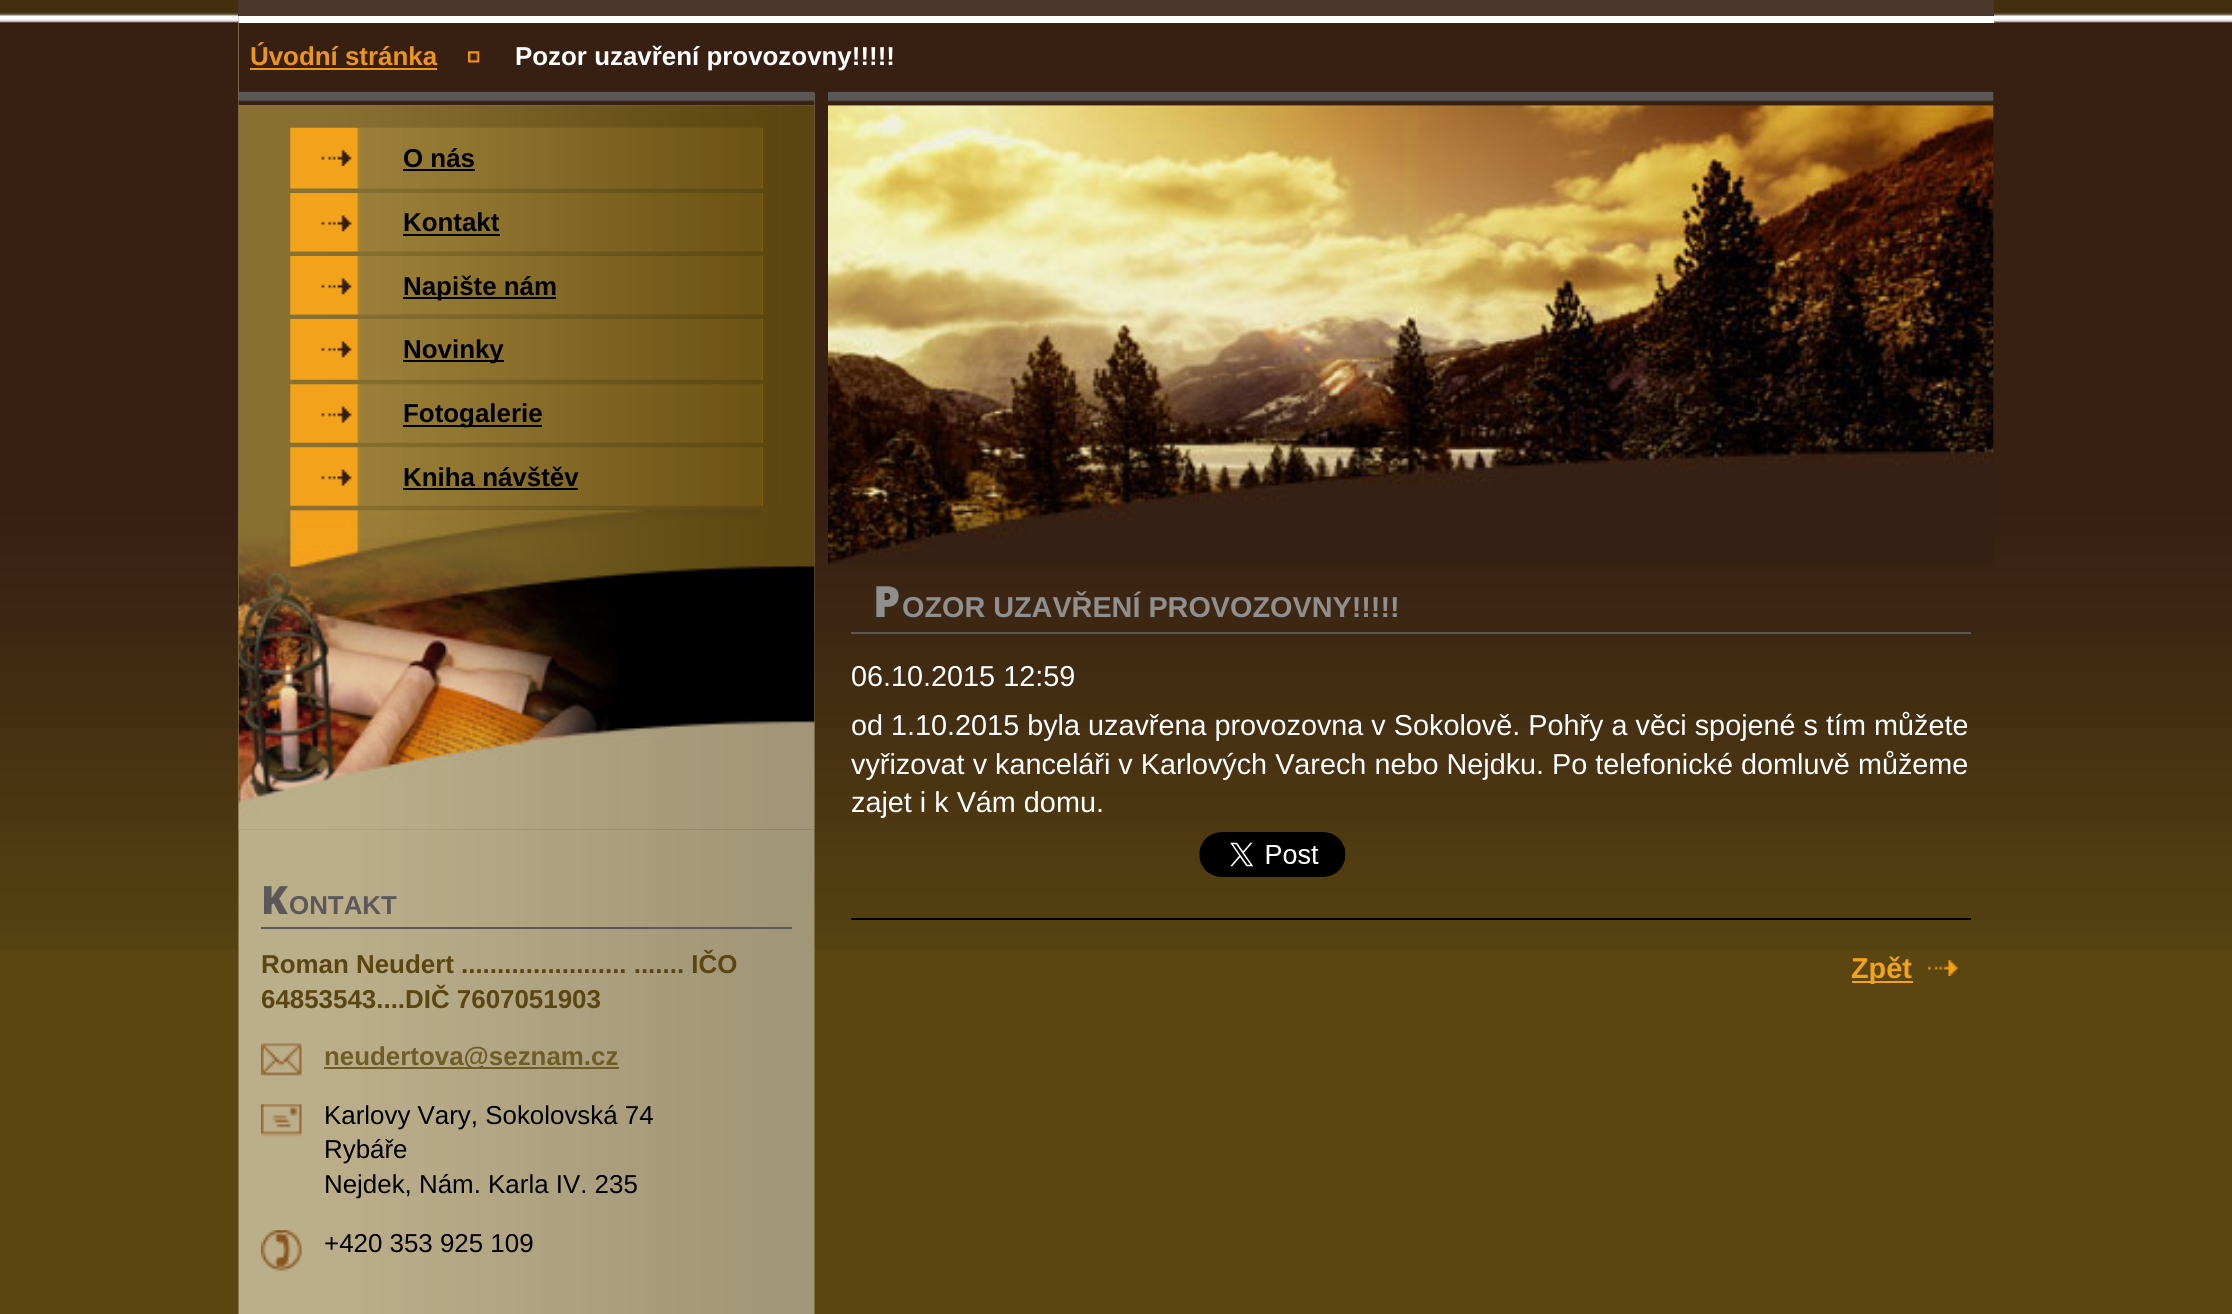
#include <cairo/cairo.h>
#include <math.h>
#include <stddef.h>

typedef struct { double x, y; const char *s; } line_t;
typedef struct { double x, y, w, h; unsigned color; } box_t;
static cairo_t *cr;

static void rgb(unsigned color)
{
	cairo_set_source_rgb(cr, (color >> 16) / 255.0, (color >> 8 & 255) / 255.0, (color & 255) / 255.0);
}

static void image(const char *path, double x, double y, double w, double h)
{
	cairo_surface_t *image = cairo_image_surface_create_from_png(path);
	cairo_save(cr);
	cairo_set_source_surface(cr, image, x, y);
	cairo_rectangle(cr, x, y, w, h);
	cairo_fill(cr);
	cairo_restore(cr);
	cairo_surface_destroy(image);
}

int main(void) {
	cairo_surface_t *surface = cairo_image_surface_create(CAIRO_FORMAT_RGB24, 2232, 1314);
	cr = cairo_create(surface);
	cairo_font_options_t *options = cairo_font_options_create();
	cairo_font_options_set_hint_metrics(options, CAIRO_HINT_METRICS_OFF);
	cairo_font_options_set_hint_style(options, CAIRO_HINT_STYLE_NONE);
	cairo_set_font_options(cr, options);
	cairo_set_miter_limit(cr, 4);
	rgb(0x5b4611);
	cairo_paint(cr);
	image("img/1.png", 0, 0, 2232, 949);
	image("img/2.png", 238, 16, 577, 1298);
	{
		static const box_t items[] = {
			{238, 0, 1756, 16, 0x4a372a},
			{239, 16, 1755, 7, 0xffffff},
			{239, 23, 1755, 65, 0x372012},
			{250, 68, 187, 2, 0xed951c},
		};
		for (size_t i = 0; i < sizeof items / sizeof *items; i++) {
			rgb(items[i].color);
			cairo_rectangle(cr, items[i].x, items[i].y, items[i].w, items[i].h);
			cairo_fill(cr);
		}
	}
	image("img/3.png", 468, 51, 12, 12);
	rgb(0x372012);
	cairo_rectangle(cr, 239, 88, 576, 5);
	cairo_fill(cr);
	image("img/4.png", 238, 91, 577, 15);
	image("img/5.png", 238, 105, 577, 725);
	image("img/6.png", 290, 127, 473, 62);
	image("img/7.png", 321, 149, 31, 17);
	rgb(0x000000);
	cairo_rectangle(cr, 403, 169, 72, 2);
	cairo_fill(cr);
	image("img/8.png", 290, 193, 473, 59);
	image("img/9.png", 321, 215, 31, 17);
	cairo_rectangle(cr, 403, 234, 97, 2);
	cairo_fill(cr);
	image("img/10.png", 290, 256, 473, 59);
	image("img/9.png", 321, 278, 31, 17);
	cairo_rectangle(cr, 403, 297, 153, 2);
	cairo_fill(cr);
	image("img/11.png", 290, 319, 473, 61);
	image("img/9.png", 321, 341, 31, 17);
	cairo_rectangle(cr, 403, 360, 101, 2);
	cairo_fill(cr);
	image("img/12.png", 290, 384, 473, 59);
	image("img/13.png", 321, 406, 31, 17);
	cairo_rectangle(cr, 403, 425, 139, 2);
	cairo_fill(cr);
	image("img/14.png", 290, 447, 473, 59);
	image("img/15.png", 321, 469, 31, 17);
	cairo_rectangle(cr, 403, 488, 175, 2);
	cairo_fill(cr);
	image("img/16.png", 238, 510, 577, 320);
	rgb(0x5c5859);
	cairo_rectangle(cr, 261, 927, 531, 2);
	cairo_fill(cr);
	image("img/17.png", 261, 1043, 41, 33);
	rgb(0x705d26);
	cairo_rectangle(cr, 324, 1067, 236, 2);
	cairo_fill(cr);
	cairo_rectangle(cr, 560, 1067, 59, 2);
	cairo_fill(cr);
	image("img/18.png", 261, 1104, 41, 33);
	image("img/19.png", 261, 1230, 41, 41);
	image("img/20.png", 828, 91, 1166, 11);
	image("img/21.png", 828, 105, 1166, 460);
	rgb(0x5a5859);
	cairo_rectangle(cr, 851, 632, 1120, 2);
	cairo_fill(cr);
	image("img/22.png", 1199, 832, 147, 45);
	rgb(0x000000);
	cairo_rectangle(cr, 851, 918, 1120, 2);
	cairo_fill(cr);
	rgb(0xf3a21c);
	cairo_rectangle(cr, 1852, 981, 61, 2);
	cairo_fill(cr);
	image("img/23.png", 1928, 960, 30, 16);
	cairo_select_font_face(cr, "Liberation Sans", CAIRO_FONT_SLANT_NORMAL, CAIRO_FONT_WEIGHT_BOLD);
	cairo_set_font_size(cr, 25.9);
	rgb(0xed951c);
	cairo_move_to(cr, 250, 65);
	cairo_show_text(cr, "Úvodní stránka");
	rgb(0xffffff);
	cairo_move_to(cr, 515, 65);
	cairo_show_text(cr, "Pozor uzavření provozovny!!!!!");
	rgb(0x000000);
	{
		static const line_t items[] = {
			{403, 167, "O nás"},
			{403, 231, "Kontakt"},
			{403, 295, "Napište nám"},
			{403, 358, "Novinky"},
			{403, 422, "Fotogalerie"},
			{403, 486, "Kniha návštěv"},
		};
		for (size_t i = 0; i < sizeof items / sizeof *items; i++) {
			cairo_move_to(cr, items[i].x, items[i].y);
			cairo_show_text(cr, items[i].s);
		}
	}
	cairo_select_font_face(cr, "Noto Sans Black", CAIRO_FONT_SLANT_NORMAL, CAIRO_FONT_WEIGHT_NORMAL);
	cairo_set_font_size(cr, 39);
	rgb(0x5c5859);
	cairo_move_to(cr, 261, 914);
	cairo_show_text(cr, "K");
	cairo_select_font_face(cr, "Liberation Sans", CAIRO_FONT_SLANT_NORMAL, CAIRO_FONT_WEIGHT_BOLD);
	cairo_set_font_size(cr, 25.9);
	cairo_move_to(cr, 289, 914);
	cairo_show_text(cr, "ONTAKT");
	rgb(0x5b4611);
	cairo_move_to(cr, 261, 973);
	cairo_show_text(cr, "Roman Neudert ....................... ....... IČO");
	cairo_move_to(cr, 261, 1008);
	cairo_show_text(cr, "64853543....DIČ 7607051903");
	rgb(0x705d26);
	cairo_move_to(cr, 324, 1065);
	cairo_show_text(cr, "neudertova@seznam.cz");
	cairo_select_font_face(cr, "Liberation Sans", CAIRO_FONT_SLANT_NORMAL, CAIRO_FONT_WEIGHT_NORMAL);
	rgb(0x000000);
	{
		static const line_t items[] = {
			{324, 1124, "Karlovy Vary, Sokolovská 74"},
			{324, 1158, "Rybáře"},
			{324, 1193, "Nejdek, Nám. Karla IV. 235"},
			{324, 1252, "+420 353 925 109"},
		};
		for (size_t i = 0; i < sizeof items / sizeof *items; i++) {
			cairo_move_to(cr, items[i].x, items[i].y);
			cairo_show_text(cr, items[i].s);
		}
	}
	cairo_select_font_face(cr, "Noto Sans Black", CAIRO_FONT_SLANT_NORMAL, CAIRO_FONT_WEIGHT_NORMAL);
	cairo_set_font_size(cr, 43);
	rgb(0x8f8f8f);
	cairo_move_to(cr, 873, 617);
	cairo_show_text(cr, "P");
	cairo_select_font_face(cr, "Liberation Sans", CAIRO_FONT_SLANT_NORMAL, CAIRO_FONT_WEIGHT_BOLD);
	cairo_set_font_size(cr, 28.8);
	cairo_move_to(cr, 902, 617);
	cairo_show_text(cr, "OZOR UZAVŘENÍ PROVOZOVNY!!!!!");
	cairo_select_font_face(cr, "Liberation Sans", CAIRO_FONT_SLANT_NORMAL, CAIRO_FONT_WEIGHT_NORMAL);
	rgb(0xffffff);
	{
		static const line_t items[] = {
			{851, 686, "06.10.2015 12:59"},
			{851, 735, "od 1.10.2015 byla uzavřena provozovna v Sokolově. Pohřy a věci spojené s tím můžete"},
			{851, 774, "vyřizovat v kanceláři v Karlových Varech nebo Nejdku. Po telefonické domluvě můžeme"},
			{851, 812, "zajet i k Vám domu."},
		};
		for (size_t i = 0; i < sizeof items / sizeof *items; i++) {
			cairo_move_to(cr, items[i].x, items[i].y);
			cairo_show_text(cr, items[i].s);
		}
	}
	cairo_select_font_face(cr, "Liberation Sans", CAIRO_FONT_SLANT_NORMAL, CAIRO_FONT_WEIGHT_BOLD);
	rgb(0xf3a21c);
	cairo_move_to(cr, 1851, 978);
	cairo_show_text(cr, "Zpět");
	cairo_surface_write_to_png(surface, "page.png");
	cairo_font_options_destroy(options);
	cairo_destroy(cr);
	cairo_surface_destroy(surface);
	return 0;
}
